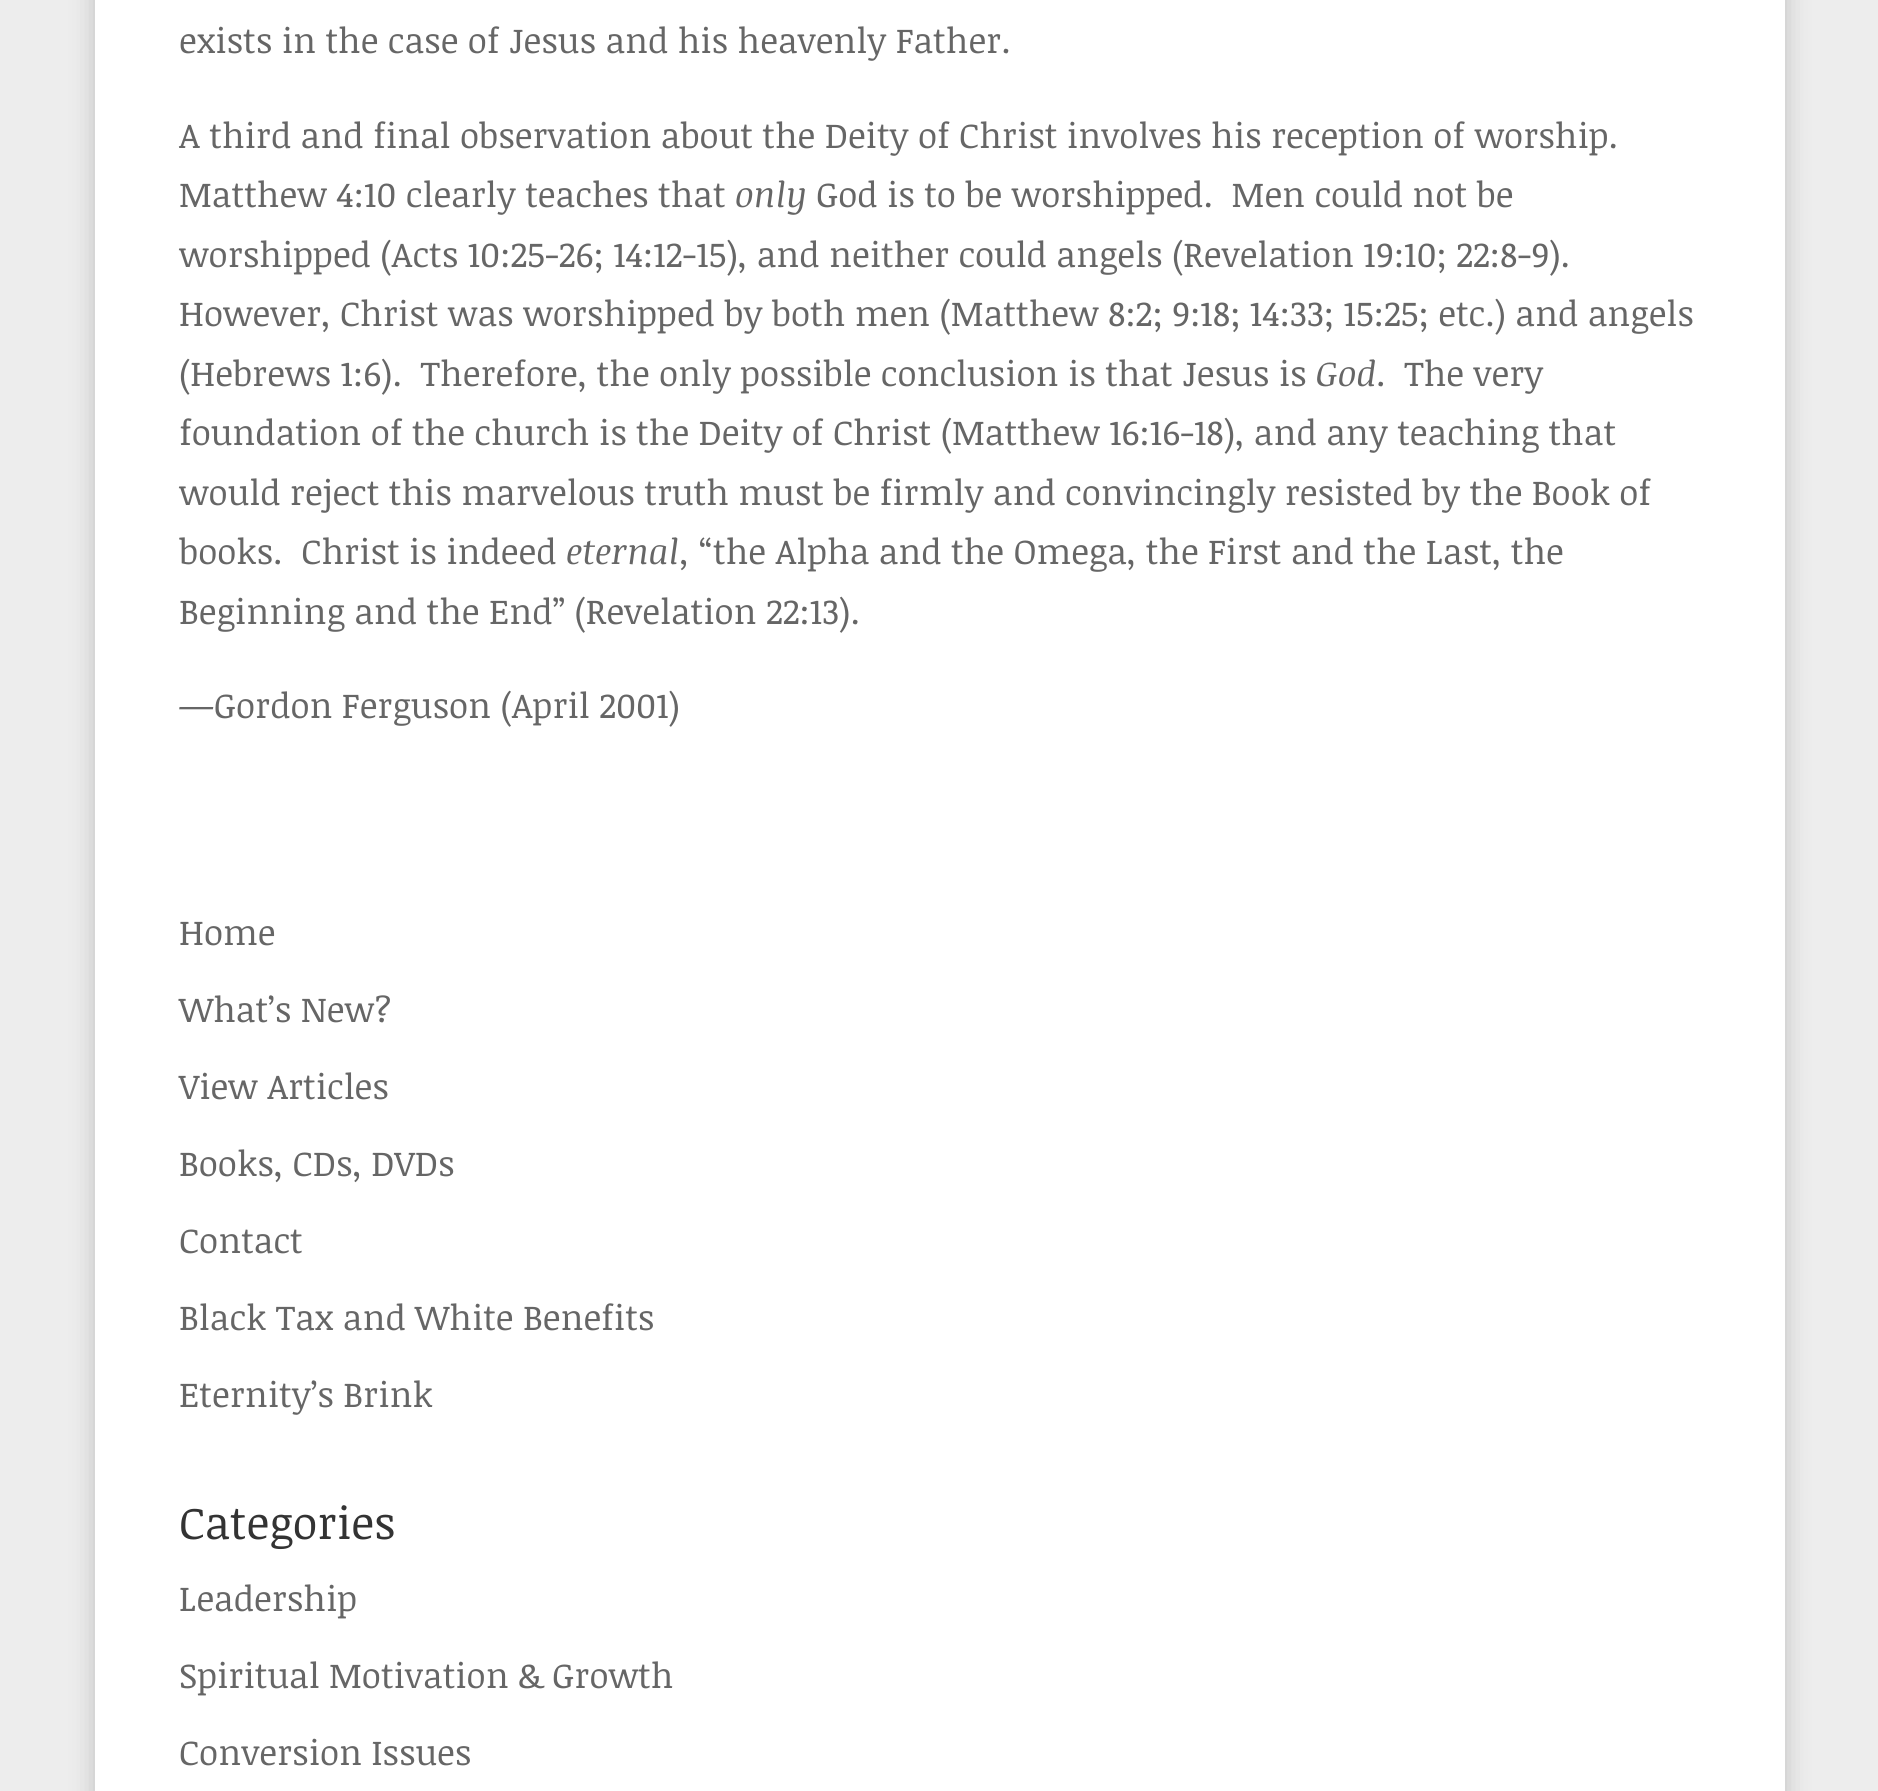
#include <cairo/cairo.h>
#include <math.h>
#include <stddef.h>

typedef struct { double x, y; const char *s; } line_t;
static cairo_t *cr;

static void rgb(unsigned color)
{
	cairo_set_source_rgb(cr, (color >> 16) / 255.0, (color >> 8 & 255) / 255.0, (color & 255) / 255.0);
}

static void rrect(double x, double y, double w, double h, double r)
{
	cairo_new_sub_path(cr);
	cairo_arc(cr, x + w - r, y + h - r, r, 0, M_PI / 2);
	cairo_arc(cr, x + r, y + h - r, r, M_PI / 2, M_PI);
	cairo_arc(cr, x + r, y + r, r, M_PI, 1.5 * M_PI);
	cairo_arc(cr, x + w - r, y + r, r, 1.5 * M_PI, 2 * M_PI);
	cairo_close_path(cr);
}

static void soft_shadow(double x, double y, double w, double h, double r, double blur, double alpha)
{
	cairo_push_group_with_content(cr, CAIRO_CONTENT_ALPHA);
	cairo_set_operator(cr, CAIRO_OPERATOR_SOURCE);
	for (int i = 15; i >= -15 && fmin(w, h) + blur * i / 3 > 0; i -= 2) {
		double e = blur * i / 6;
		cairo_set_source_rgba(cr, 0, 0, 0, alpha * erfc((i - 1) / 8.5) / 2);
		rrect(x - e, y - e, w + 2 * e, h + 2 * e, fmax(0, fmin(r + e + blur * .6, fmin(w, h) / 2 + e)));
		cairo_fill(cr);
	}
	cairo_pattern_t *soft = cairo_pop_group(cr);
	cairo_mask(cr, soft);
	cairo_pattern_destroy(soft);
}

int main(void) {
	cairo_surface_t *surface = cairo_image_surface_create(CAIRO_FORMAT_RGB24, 1878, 1791);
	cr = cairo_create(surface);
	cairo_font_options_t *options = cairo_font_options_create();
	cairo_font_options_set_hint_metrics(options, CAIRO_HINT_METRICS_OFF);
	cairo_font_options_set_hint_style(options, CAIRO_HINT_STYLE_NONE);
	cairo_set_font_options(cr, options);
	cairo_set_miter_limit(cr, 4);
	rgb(0xededed);
	cairo_paint(cr);
	rgb(0x000000);
	soft_shadow(95, -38, 1690, 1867, 0, 12.5, 0.2);
	rgb(0xffffff);
	cairo_rectangle(cr, 95, 0, 1690, 1791);
	cairo_fill(cr);
	cairo_select_font_face(cr, "Noticia Text", CAIRO_FONT_SLANT_NORMAL, CAIRO_FONT_WEIGHT_NORMAL);
	cairo_set_font_size(cr, 35);
	rgb(0x666666);
	{
		static const line_t items[] = {
			{179, 53, "exists in the case of Jesus and his heavenly Father."},
			{179, 148, "A third and final observation about the Deity of Christ involves his reception of worship."},
			{179, 207, "Matthew 4:10 clearly teaches that"},
		};
		for (size_t i = 0; i < sizeof items / sizeof *items; i++) {
			cairo_move_to(cr, items[i].x, items[i].y);
			cairo_show_text(cr, items[i].s);
		}
	}
	cairo_select_font_face(cr, "Noticia Text", CAIRO_FONT_SLANT_ITALIC, CAIRO_FONT_WEIGHT_NORMAL);
	cairo_move_to(cr, 735, 207);
	cairo_show_text(cr, "only");
	cairo_select_font_face(cr, "Noticia Text", CAIRO_FONT_SLANT_NORMAL, CAIRO_FONT_WEIGHT_NORMAL);
	{
		static const line_t items[] = {
			{816, 207, "God is to be worshipped.  Men could not be"},
			{179, 267, "worshipped (Acts 10:25-26; 14:12-15), and neither could angels (Revelation 19:10; 22:8-9)."},
			{179, 326, "However, Christ was worshipped by both men (Matthew 8:2; 9:18; 14:33; 15:25; etc.) and angels"},
			{179, 386, "(Hebrews 1:6).  Therefore, the only possible conclusion is that Jesus is"},
		};
		for (size_t i = 0; i < sizeof items / sizeof *items; i++) {
			cairo_move_to(cr, items[i].x, items[i].y);
			cairo_show_text(cr, items[i].s);
		}
	}
	cairo_select_font_face(cr, "Noticia Text", CAIRO_FONT_SLANT_ITALIC, CAIRO_FONT_WEIGHT_NORMAL);
	cairo_move_to(cr, 1316, 386);
	cairo_show_text(cr, "God");
	cairo_select_font_face(cr, "Noticia Text", CAIRO_FONT_SLANT_NORMAL, CAIRO_FONT_WEIGHT_NORMAL);
	{
		static const line_t items[] = {
			{1376, 386, ".  The very"},
			{179, 445, "foundation of the church is the Deity of Christ (Matthew 16:16-18), and any teaching that"},
			{179, 505, "would reject this marvelous truth must be firmly and convincingly resisted by the Book of"},
			{179, 564, "books.  Christ is indeed"},
		};
		for (size_t i = 0; i < sizeof items / sizeof *items; i++) {
			cairo_move_to(cr, items[i].x, items[i].y);
			cairo_show_text(cr, items[i].s);
		}
	}
	cairo_select_font_face(cr, "Noticia Text", CAIRO_FONT_SLANT_ITALIC, CAIRO_FONT_WEIGHT_NORMAL);
	cairo_move_to(cr, 566, 564);
	cairo_show_text(cr, "eternal,");
	cairo_select_font_face(cr, "Noticia Text", CAIRO_FONT_SLANT_NORMAL, CAIRO_FONT_WEIGHT_NORMAL);
	{
		static const line_t items[] = {
			{699, 564, "“the Alpha and the Omega, the First and the Last, the"},
			{179, 624, "Beginning and the End” (Revelation 22:13)."},
			{179, 718, "—Gordon Ferguson (April 2001)"},
			{179, 945, "Home"},
			{179, 1022, "What’s New?"},
			{179, 1099, "View Articles"},
			{179, 1176, "Books, CDs, DVDs"},
			{179, 1253, "Contact"},
			{179, 1330, "Black Tax and White Benefits"},
			{179, 1407, "Eternity’s Brink"},
		};
		for (size_t i = 0; i < sizeof items / sizeof *items; i++) {
			cairo_move_to(cr, items[i].x, items[i].y);
			cairo_show_text(cr, items[i].s);
		}
	}
	cairo_set_font_size(cr, 45);
	rgb(0x333333);
	cairo_move_to(cr, 179, 1539);
	cairo_show_text(cr, "Categories");
	cairo_set_font_size(cr, 35);
	rgb(0x666666);
	{
		static const line_t items[] = {
			{179, 1611, "Leadership"},
			{179, 1688, "Spiritual Motivation & Growth"},
			{179, 1765, "Conversion Issues"},
		};
		for (size_t i = 0; i < sizeof items / sizeof *items; i++) {
			cairo_move_to(cr, items[i].x, items[i].y);
			cairo_show_text(cr, items[i].s);
		}
	}
	cairo_surface_write_to_png(surface, "page.png");
	cairo_font_options_destroy(options);
	cairo_destroy(cr);
	cairo_surface_destroy(surface);
	return 0;
}
